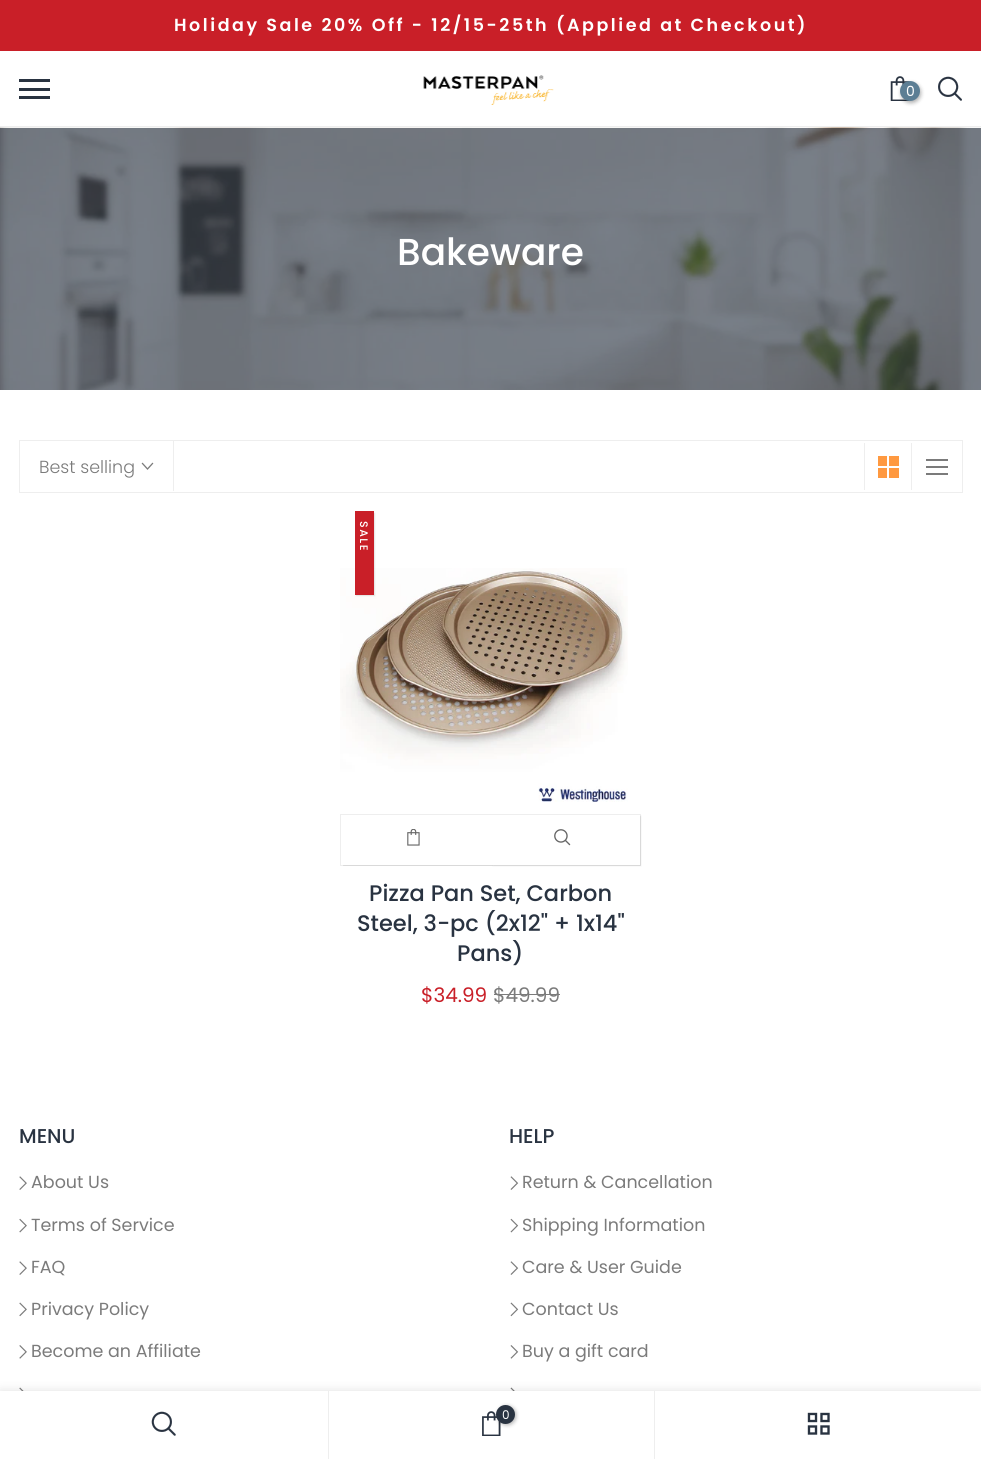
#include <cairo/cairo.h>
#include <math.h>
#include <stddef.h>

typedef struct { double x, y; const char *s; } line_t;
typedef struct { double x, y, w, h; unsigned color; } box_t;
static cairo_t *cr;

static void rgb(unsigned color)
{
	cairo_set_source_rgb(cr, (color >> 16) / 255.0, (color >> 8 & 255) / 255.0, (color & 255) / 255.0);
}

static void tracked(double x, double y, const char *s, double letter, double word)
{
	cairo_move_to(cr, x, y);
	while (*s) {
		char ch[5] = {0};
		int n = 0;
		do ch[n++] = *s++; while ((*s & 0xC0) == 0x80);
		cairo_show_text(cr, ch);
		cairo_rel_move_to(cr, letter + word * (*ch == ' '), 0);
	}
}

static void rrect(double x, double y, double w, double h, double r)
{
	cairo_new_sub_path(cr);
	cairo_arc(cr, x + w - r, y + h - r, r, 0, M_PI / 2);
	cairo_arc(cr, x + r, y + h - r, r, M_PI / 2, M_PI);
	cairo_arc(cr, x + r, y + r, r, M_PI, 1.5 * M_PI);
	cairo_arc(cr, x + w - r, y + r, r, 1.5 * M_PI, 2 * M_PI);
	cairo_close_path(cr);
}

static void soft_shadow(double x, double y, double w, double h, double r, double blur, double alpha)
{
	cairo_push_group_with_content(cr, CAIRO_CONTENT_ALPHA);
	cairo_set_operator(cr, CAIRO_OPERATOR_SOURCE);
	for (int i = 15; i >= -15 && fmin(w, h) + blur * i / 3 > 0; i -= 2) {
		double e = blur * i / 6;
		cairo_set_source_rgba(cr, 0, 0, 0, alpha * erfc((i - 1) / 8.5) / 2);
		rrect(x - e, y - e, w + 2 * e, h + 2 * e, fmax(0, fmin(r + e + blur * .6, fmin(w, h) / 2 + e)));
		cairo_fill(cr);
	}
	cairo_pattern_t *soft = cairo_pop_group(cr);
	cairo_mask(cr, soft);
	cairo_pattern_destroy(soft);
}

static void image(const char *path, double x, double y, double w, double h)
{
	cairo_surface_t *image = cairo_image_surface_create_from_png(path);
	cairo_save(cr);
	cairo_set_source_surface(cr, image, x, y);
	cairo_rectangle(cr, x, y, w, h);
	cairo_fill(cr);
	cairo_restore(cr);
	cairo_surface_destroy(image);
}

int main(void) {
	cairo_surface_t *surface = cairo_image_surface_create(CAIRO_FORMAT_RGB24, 981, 1459);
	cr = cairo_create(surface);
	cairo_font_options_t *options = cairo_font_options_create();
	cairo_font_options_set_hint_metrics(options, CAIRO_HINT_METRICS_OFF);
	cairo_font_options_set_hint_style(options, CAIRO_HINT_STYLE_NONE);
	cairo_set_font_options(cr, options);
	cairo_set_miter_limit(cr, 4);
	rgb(0xffffff);
	cairo_paint(cr);
	{
		static const box_t items[] = {
			{0, 0, 981, 51, 0xc91f28},
			{0, 126, 981, 1, 0xeeeeee},
			{19, 79, 31, 3, 0x293341},
			{19, 88, 31, 3, 0x293341},
			{19, 96, 31, 3, 0x293341},
		};
		for (size_t i = 0; i < sizeof items / sizeof *items; i++) {
			rgb(items[i].color);
			cairo_rectangle(cr, items[i].x, items[i].y, items[i].w, items[i].h);
			cairo_fill(cr);
		}
	}
	image("img/1.png", 423, 75, 131, 30);
	image("img/2.png", 890, 76, 20, 25);
	rgb(0x000000);
	soft_shadow(901, 83, 20, 20, 10, 2, 0.3);
	rgb(0x5c7e94);
	cairo_arc(cr, 910, 91, 10, 0, 2 * M_PI);
	cairo_fill(cr);
	image("img/3.png", 938, 76, 24, 25);
	image("img/4.png", 0, 127, 981, 263);
	cairo_rectangle(cr, 19.5, 440.5, 943, 52);
	rgb(0xeeeeee);
	cairo_set_line_width(cr, 1);
	cairo_stroke(cr);
	cairo_rectangle(cr, 173, 441, 1, 50);
	cairo_fill(cr);
	cairo_new_path(cr);
	cairo_move_to(cr, 152.5, 463.5);
	cairo_line_to(cr, 147.5, 469);
	cairo_line_to(cr, 142.5, 463.5);
	rgb(0x7b7b7b);
	cairo_set_line_width(cr, 1.3);
	cairo_set_line_cap(cr, CAIRO_LINE_CAP_SQUARE);
	cairo_stroke(cr);
	{
		static const box_t items[] = {
			{864, 443, 1, 47, 0xeeeeee},
			{911, 443, 1, 47, 0xeeeeee},
			{878, 456, 9, 10, 0xff9940},
			{889, 456, 10, 10, 0xff9940},
			{878, 468, 9, 10, 0xff9940},
			{889, 468, 10, 10, 0xff9940},
			{926, 459, 22, 2, 0x7b7b7b},
			{926, 466, 22, 2, 0x7b7b7b},
			{926, 473, 22, 2, 0x7b7b7b},
		};
		for (size_t i = 0; i < sizeof items / sizeof *items; i++) {
			rgb(items[i].color);
			cairo_rectangle(cr, items[i].x, items[i].y, items[i].w, items[i].h);
			cairo_fill(cr);
		}
	}
	image("img/5.png", 340, 568, 288, 234);
	rgb(0x000000);
	soft_shadow(356, 513, 19, 83, 0, 0.5, 0.1);
	rgb(0xc91f28);
	cairo_rectangle(cr, 355, 511, 19, 84);
	cairo_fill(cr);
	cairo_rectangle(cr, 340.5, 814.5, 300, 51);
	rgb(0xeeeeee);
	cairo_set_line_width(cr, 1);
	cairo_set_line_cap(cr, CAIRO_LINE_CAP_BUTT);
	cairo_stroke(cr);
	cairo_save(cr);
	cairo_rectangle(cr, 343, 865, 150, 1);
	cairo_clip(cr);
	rgb(0x000000);
	soft_shadow(343, 816, 150, 50, 0, 0.5, 0.1);
	cairo_restore(cr);
	image("img/6.png", 407, 829, 13, 17);
	rgb(0x000000);
	soft_shadow(493, 816, 148, 50, 0, 0.5, 0.1);
	rgb(0xffffff);
	cairo_rectangle(cr, 491, 815, 149, 50);
	cairo_fill(cr);
	image("img/7.png", 554, 829, 17, 17);
	rgb(0x7b7b7b);
	cairo_rectangle(cr, 494, 994, 66, 1);
	cairo_fill(cr);
	image("img/8.png", 19, 1176, 8, 14);
	image("img/9.png", 19, 1218, 8, 15);
	image("img/8.png", 19, 1261, 8, 14);
	image("img/10.png", 19, 1302, 8, 15);
	image("img/11.png", 19, 1345, 8, 14);
	image("img/12.png", 19, 1387, 5, 4);
	image("img/13.png", 510, 1176, 9, 14);
	image("img/14.png", 510, 1218, 9, 15);
	image("img/13.png", 510, 1261, 9, 14);
	image("img/15.png", 510, 1302, 9, 15);
	image("img/16.png", 510, 1345, 9, 14);
	image("img/17.png", 510, 1387, 5, 4);
	rgb(0x000000);
	soft_shadow(0, 1391, 981, 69, 0, 5.5, 0.12);
	rgb(0xffffff);
	cairo_rectangle(cr, 0, 1391, 981, 68);
	cairo_fill(cr);
	image("img/18.png", 151, 1411, 25, 25);
	rgb(0xeeeeee);
	cairo_rectangle(cr, 328, 1391, 1, 68);
	cairo_fill(cr);
	image("img/19.png", 482, 1411, 19, 25);
	rgb(0x000000);
	soft_shadow(498, 1406, 18, 19, 9, 2, 0.3);
	rgb(0x293341);
	cairo_arc(cr, 505.5, 1414.5, 9.5, 0, 2 * M_PI);
	cairo_fill(cr);
	rgb(0xeeeeee);
	cairo_rectangle(cr, 654, 1391, 1, 68);
	cairo_fill(cr);
	image("img/20.png", 807, 1412, 23, 23);
	cairo_select_font_face(cr, "Poppins SemiBold", CAIRO_FONT_SLANT_NORMAL, CAIRO_FONT_WEIGHT_NORMAL);
	cairo_set_font_size(cr, 17.5);
	rgb(0xffffff);
	tracked(174, 31, "Holiday Sale 20% Off - 12/15-25th (Applied at Checkout)", 2.55, 0);
	cairo_select_font_face(cr, "Poppins", CAIRO_FONT_SLANT_NORMAL, CAIRO_FONT_WEIGHT_NORMAL);
	cairo_set_font_size(cr, 14);
	cairo_move_to(cr, 906, 96);
	cairo_show_text(cr, "0");
	cairo_select_font_face(cr, "Poppins Medium", CAIRO_FONT_SLANT_NORMAL, CAIRO_FONT_WEIGHT_NORMAL);
	cairo_set_font_size(cr, 37.5);
	cairo_move_to(cr, 397, 265);
	cairo_show_text(cr, "Bakeware");
	cairo_select_font_face(cr, "Poppins Light", CAIRO_FONT_SLANT_NORMAL, CAIRO_FONT_WEIGHT_NORMAL);
	cairo_set_font_size(cr, 17.5);
	rgb(0x7b7b7b);
	cairo_move_to(cr, 39, 473);
	cairo_show_text(cr, "Best selling");
	cairo_select_font_face(cr, "Poppins Medium", CAIRO_FONT_SLANT_NORMAL, CAIRO_FONT_WEIGHT_NORMAL);
	cairo_set_font_size(cr, 11);
	rgb(0xffffff);
	cairo_save(cr);
	cairo_translate(cr, 360, 521);
	cairo_rotate(cr, 90 * M_PI / 180);
	tracked(0, 0, "SALE", 1.5, 0);
	cairo_restore(cr);
	cairo_set_font_size(cr, 22.5);
	rgb(0x293341);
	{
		static const line_t items[] = {
			{369, 901, "Pizza Pan Set, Carbon"},
			{357, 931, "Steel, 3-pc (2x12\" + 1x14\""},
			{457, 961, "Pans)"},
		};
		for (size_t i = 0; i < sizeof items / sizeof *items; i++) {
			cairo_move_to(cr, items[i].x, items[i].y);
			cairo_show_text(cr, items[i].s);
		}
	}
	cairo_select_font_face(cr, "Poppins", CAIRO_FONT_SLANT_NORMAL, CAIRO_FONT_WEIGHT_NORMAL);
	cairo_set_font_size(cr, 20);
	rgb(0xc91f28);
	cairo_move_to(cr, 421, 1002);
	cairo_show_text(cr, "$34.99");
	rgb(0x7b7b7b);
	cairo_move_to(cr, 493, 1002);
	cairo_show_text(cr, "$49.99");
	cairo_select_font_face(cr, "Poppins Medium", CAIRO_FONT_SLANT_NORMAL, CAIRO_FONT_WEIGHT_NORMAL);
	rgb(0x293341);
	cairo_move_to(cr, 19, 1143);
	cairo_show_text(cr, "MENU");
	cairo_select_font_face(cr, "Poppins", CAIRO_FONT_SLANT_NORMAL, CAIRO_FONT_WEIGHT_NORMAL);
	cairo_set_font_size(cr, 17.5);
	rgb(0x7b7b7b);
	{
		static const line_t items[] = {
			{31, 1188, "About Us"},
			{31, 1231, "Terms of Service"},
			{31, 1273, "FAQ"},
			{31, 1315, "Privacy Policy"},
			{31, 1357, "Become an Affiliate"},
		};
		for (size_t i = 0; i < sizeof items / sizeof *items; i++) {
			cairo_move_to(cr, items[i].x, items[i].y);
			cairo_show_text(cr, items[i].s);
		}
	}
	cairo_select_font_face(cr, "Poppins Medium", CAIRO_FONT_SLANT_NORMAL, CAIRO_FONT_WEIGHT_NORMAL);
	cairo_set_font_size(cr, 20);
	rgb(0x293341);
	cairo_move_to(cr, 509, 1143);
	cairo_show_text(cr, "HELP");
	cairo_select_font_face(cr, "Poppins", CAIRO_FONT_SLANT_NORMAL, CAIRO_FONT_WEIGHT_NORMAL);
	cairo_set_font_size(cr, 17.5);
	rgb(0x7b7b7b);
	{
		static const line_t items[] = {
			{522, 1188, "Return & Cancellation"},
			{522, 1231, "Shipping Information"},
			{522, 1273, "Care & User Guide"},
			{522, 1315, "Contact Us"},
			{522, 1357, "Buy a gift card"},
		};
		for (size_t i = 0; i < sizeof items / sizeof *items; i++) {
			cairo_move_to(cr, items[i].x, items[i].y);
			cairo_show_text(cr, items[i].s);
		}
	}
	cairo_set_font_size(cr, 12);
	rgb(0xffffff);
	cairo_move_to(cr, 502, 1419);
	cairo_show_text(cr, "0");
	cairo_surface_write_to_png(surface, "page.png");
	cairo_font_options_destroy(options);
	cairo_destroy(cr);
	cairo_surface_destroy(surface);
	return 0;
}
